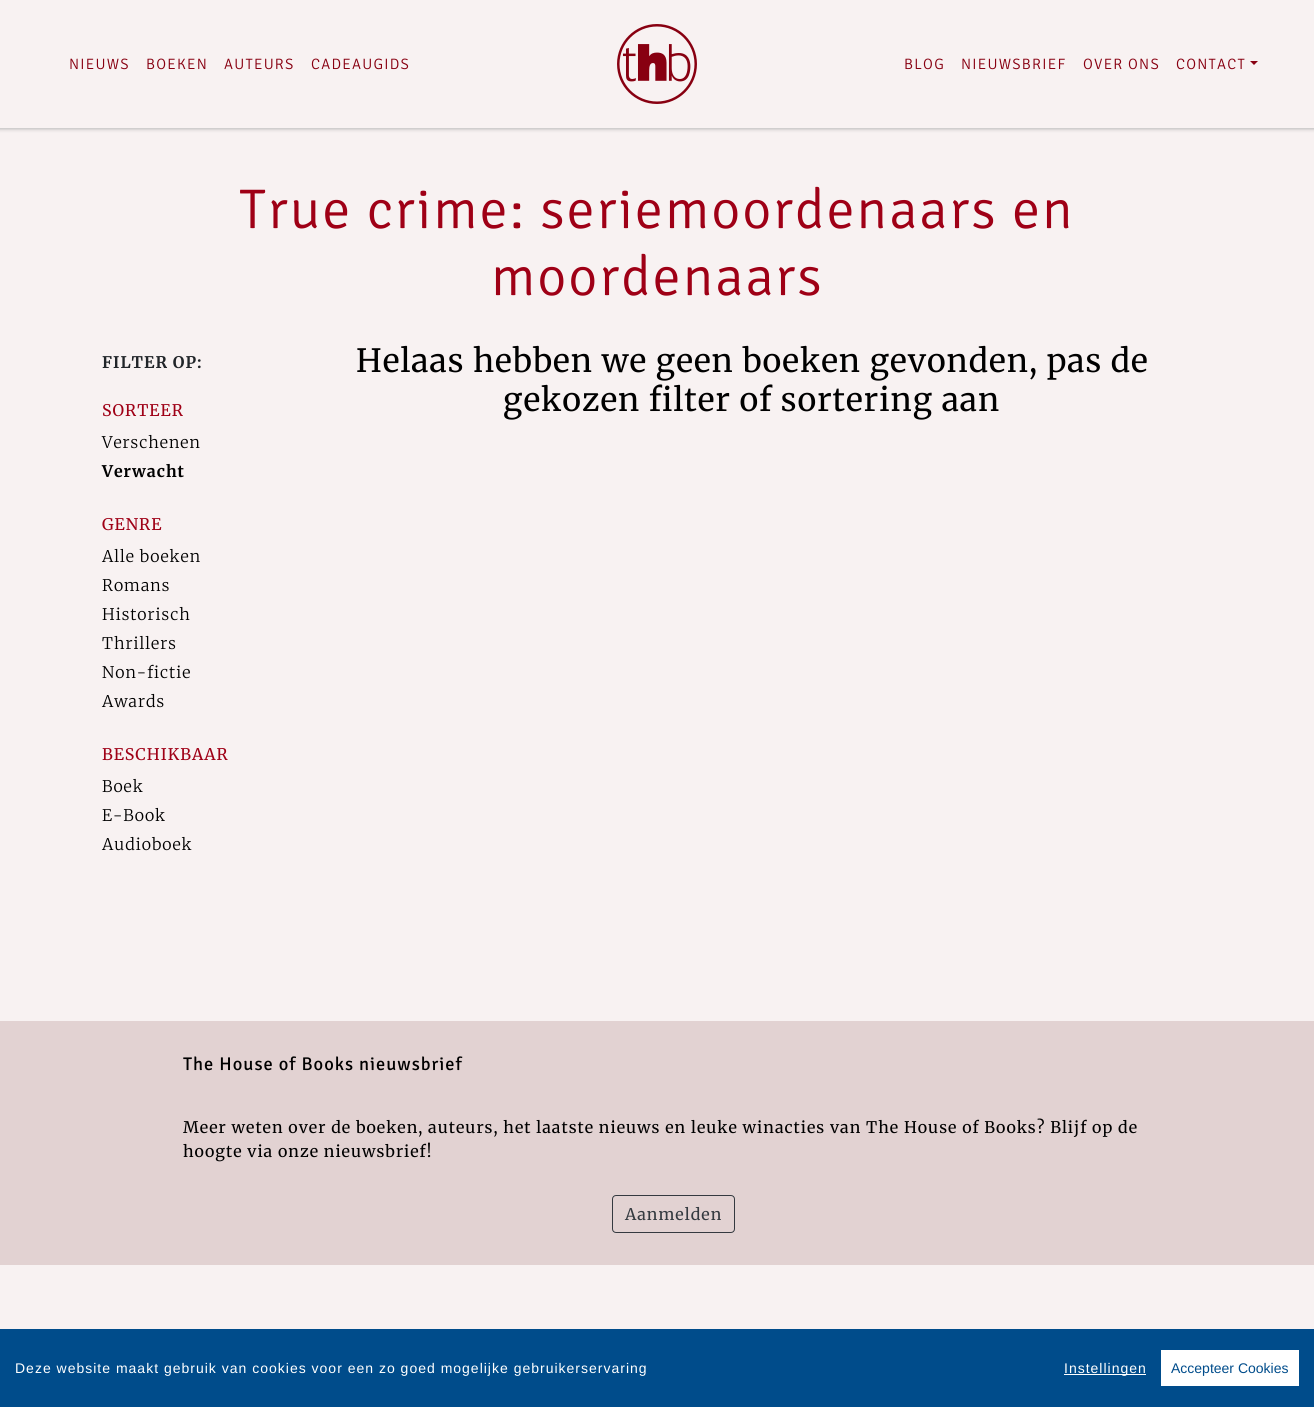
#include <cairo/cairo.h>
#include <math.h>
#include <stddef.h>

typedef struct { double x, y; const char *s; } line_t;
typedef struct { double x, y, w, h; unsigned color; } box_t;
static cairo_t *cr;

static void rgb(unsigned color)
{
	cairo_set_source_rgb(cr, (color >> 16) / 255.0, (color >> 8 & 255) / 255.0, (color & 255) / 255.0);
}

static void tracked(double x, double y, const char *s, double letter, double word)
{
	cairo_move_to(cr, x, y);
	while (*s) {
		char ch[5] = {0};
		int n = 0;
		do ch[n++] = *s++; while ((*s & 0xC0) == 0x80);
		cairo_show_text(cr, ch);
		cairo_rel_move_to(cr, letter + word * (*ch == ' '), 0);
	}
}

static void rrect(double x, double y, double w, double h, double r)
{
	cairo_new_sub_path(cr);
	cairo_arc(cr, x + w - r, y + h - r, r, 0, M_PI / 2);
	cairo_arc(cr, x + r, y + h - r, r, M_PI / 2, M_PI);
	cairo_arc(cr, x + r, y + r, r, M_PI, 1.5 * M_PI);
	cairo_arc(cr, x + w - r, y + r, r, 1.5 * M_PI, 2 * M_PI);
	cairo_close_path(cr);
}

static void soft_shadow(double x, double y, double w, double h, double r, double blur, double alpha)
{
	cairo_push_group_with_content(cr, CAIRO_CONTENT_ALPHA);
	cairo_set_operator(cr, CAIRO_OPERATOR_SOURCE);
	for (int i = 15; i >= -15 && fmin(w, h) + blur * i / 3 > 0; i -= 2) {
		double e = blur * i / 6;
		cairo_set_source_rgba(cr, 0, 0, 0, alpha * erfc((i - 1) / 8.5) / 2);
		rrect(x - e, y - e, w + 2 * e, h + 2 * e, fmax(0, fmin(r + e + blur * .6, fmin(w, h) / 2 + e)));
		cairo_fill(cr);
	}
	cairo_pattern_t *soft = cairo_pop_group(cr);
	cairo_mask(cr, soft);
	cairo_pattern_destroy(soft);
}

static void image(const char *path, double x, double y, double w, double h)
{
	cairo_surface_t *image = cairo_image_surface_create_from_png(path);
	cairo_save(cr);
	cairo_set_source_surface(cr, image, x, y);
	cairo_rectangle(cr, x, y, w, h);
	cairo_fill(cr);
	cairo_restore(cr);
	cairo_surface_destroy(image);
}

int main(void) {
	cairo_surface_t *surface = cairo_image_surface_create(CAIRO_FORMAT_RGB24, 1314, 1407);
	cr = cairo_create(surface);
	cairo_font_options_t *options = cairo_font_options_create();
	cairo_font_options_set_hint_metrics(options, CAIRO_HINT_METRICS_OFF);
	cairo_font_options_set_hint_style(options, CAIRO_HINT_STYLE_NONE);
	cairo_set_font_options(cr, options);
	cairo_set_miter_limit(cr, 4);
	rgb(0xf8f2f2);
	cairo_paint(cr);
	cairo_save(cr);
	cairo_rectangle(cr, 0, 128, 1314, 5);
	cairo_clip(cr);
	rgb(0xb4b4b4);
	soft_shadow(-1, -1, 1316, 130, 0, 2, 1);
	cairo_restore(cr);
	image("img/1.png", 617, 24, 80, 80);
	rgb(0x880011);
	cairo_new_path(cr);
	cairo_move_to(cr, 1250, 61);
	cairo_line_to(cr, 1258, 61);
	cairo_line_to(cr, 1254, 65);
	cairo_close_path(cr);
	cairo_fill(cr);
	rgb(0xe2d2d2);
	cairo_rectangle(cr, 0, 1021, 1314, 244);
	cairo_fill(cr);
	rrect(612.5, 1195.5, 122, 37, 3.5);
	rgb(0x343a40);
	cairo_set_line_width(cr, 1);
	cairo_stroke(cr);
	{
		static const box_t items[] = {
			{0, 1329, 1314, 78, 0x004c8b},
			{1064, 1374, 82, 1, 0xffffff},
			{1161, 1350, 138, 36, 0xffffff},
		};
		for (size_t i = 0; i < sizeof items / sizeof *items; i++) {
			rgb(items[i].color);
			cairo_rectangle(cr, items[i].x, items[i].y, items[i].w, items[i].h);
			cairo_fill(cr);
		}
	}
	cairo_select_font_face(cr, "Signika Light", CAIRO_FONT_SLANT_NORMAL, CAIRO_FONT_WEIGHT_NORMAL);
	cairo_set_font_size(cr, 15);
	rgb(0x880011);
	{
		static const line_t items[] = {
			{69, 69, "NIEUWS"},
			{146, 69, "BOEKEN"},
			{224, 69, "AUTEURS"},
			{311, 69, "CADEAUGIDS"},
			{904, 69, "BLOG"},
			{961, 69, "NIEUWSBRIEF"},
			{1083, 69, "OVER ONS"},
			{1176, 69, "CONTACT"},
		};
		for (size_t i = 0; i < sizeof items / sizeof *items; i++) {
			tracked(items[i].x, items[i].y, items[i].s, 1.25, 0);
		}
	}
	cairo_set_font_size(cr, 56);
	rgb(0x9f0016);
	tracked(239, 228, "True crime: seriemoordenaars en", 2, 0);
	tracked(491, 295, "moordenaars", 2, 0);
	cairo_select_font_face(cr, "Merriweather", CAIRO_FONT_SLANT_NORMAL, CAIRO_FONT_WEIGHT_BOLD);
	cairo_set_font_size(cr, 16);
	rgb(0x212529);
	tracked(102, 368, "FILTER OP:", 1, 0);
	cairo_select_font_face(cr, "Merriweather", CAIRO_FONT_SLANT_NORMAL, CAIRO_FONT_WEIGHT_NORMAL);
	rgb(0x9f0016);
	tracked(102, 416, "SORTEER", 1, 0);
	cairo_select_font_face(cr, "Merriweather Light", CAIRO_FONT_SLANT_NORMAL, CAIRO_FONT_WEIGHT_NORMAL);
	rgb(0x000000);
	tracked(102, 448, "Verschenen", 1, 0);
	cairo_select_font_face(cr, "Merriweather", CAIRO_FONT_SLANT_NORMAL, CAIRO_FONT_WEIGHT_BOLD);
	tracked(102, 477, "Verwacht", 1, 0);
	cairo_select_font_face(cr, "Merriweather", CAIRO_FONT_SLANT_NORMAL, CAIRO_FONT_WEIGHT_NORMAL);
	rgb(0x9f0016);
	tracked(102, 530, "GENRE", 1, 0);
	cairo_select_font_face(cr, "Merriweather Light", CAIRO_FONT_SLANT_NORMAL, CAIRO_FONT_WEIGHT_NORMAL);
	rgb(0x000000);
	{
		static const line_t items[] = {
			{102, 562, "Alle boeken"},
			{102, 591, "Romans"},
			{102, 620, "Historisch"},
			{102, 649, "Thrillers"},
			{102, 678, "Non-fictie"},
			{102, 707, "Awards"},
		};
		for (size_t i = 0; i < sizeof items / sizeof *items; i++) {
			tracked(items[i].x, items[i].y, items[i].s, 1, 0);
		}
	}
	cairo_select_font_face(cr, "Merriweather", CAIRO_FONT_SLANT_NORMAL, CAIRO_FONT_WEIGHT_NORMAL);
	rgb(0x9f0016);
	tracked(102, 760, "BESCHIKBAAR", 1, 0);
	cairo_select_font_face(cr, "Merriweather Light", CAIRO_FONT_SLANT_NORMAL, CAIRO_FONT_WEIGHT_NORMAL);
	rgb(0x000000);
	{
		static const line_t items[] = {
			{102, 792, "Boek"},
			{102, 821, "E-Book"},
			{102, 850, "Audioboek"},
		};
		for (size_t i = 0; i < sizeof items / sizeof *items; i++) {
			tracked(items[i].x, items[i].y, items[i].s, 1, 0);
		}
	}
	cairo_select_font_face(cr, "Merriweather", CAIRO_FONT_SLANT_NORMAL, CAIRO_FONT_WEIGHT_NORMAL);
	cairo_set_font_size(cr, 32);
	tracked(356, 372, "Helaas hebben we geen boeken gevonden, pas de", 1, 0);
	tracked(503, 411, "gekozen filter of sortering aan", 1, 0);
	cairo_select_font_face(cr, "Signika", CAIRO_FONT_SLANT_NORMAL, CAIRO_FONT_WEIGHT_NORMAL);
	cairo_set_font_size(cr, 18.4);
	tracked(183, 1070, "The House of Books nieuwsbrief", 1, 0);
	cairo_select_font_face(cr, "Merriweather", CAIRO_FONT_SLANT_NORMAL, CAIRO_FONT_WEIGHT_NORMAL);
	cairo_set_font_size(cr, 16);
	tracked(183, 1133, "Meer weten over de boeken, auteurs, het laatste nieuws en leuke winacties van The House of Books? Blijf op de", 1, 0);
	tracked(183, 1157, "hoogte via onze nieuwsbrief!", 1, 0);
	rgb(0x343a40);
	tracked(625, 1220, "Aanmelden", 1, 0);
	cairo_select_font_face(cr, "Liberation Sans", CAIRO_FONT_SLANT_NORMAL, CAIRO_FONT_WEIGHT_NORMAL);
	cairo_set_font_size(cr, 14);
	rgb(0xffffff);
	tracked(15, 1373, "Deze website maakt gebruik van cookies voor een zo goed mogelijke gebruikerservaring", 1, 0);
	tracked(1064, 1373, "Instellingen", 1, 0);
	rgb(0x004c8b);
	cairo_move_to(cr, 1171, 1373);
	cairo_show_text(cr, "Accepteer Cookies");
	cairo_surface_write_to_png(surface, "page.png");
	cairo_font_options_destroy(options);
	cairo_destroy(cr);
	cairo_surface_destroy(surface);
	return 0;
}
